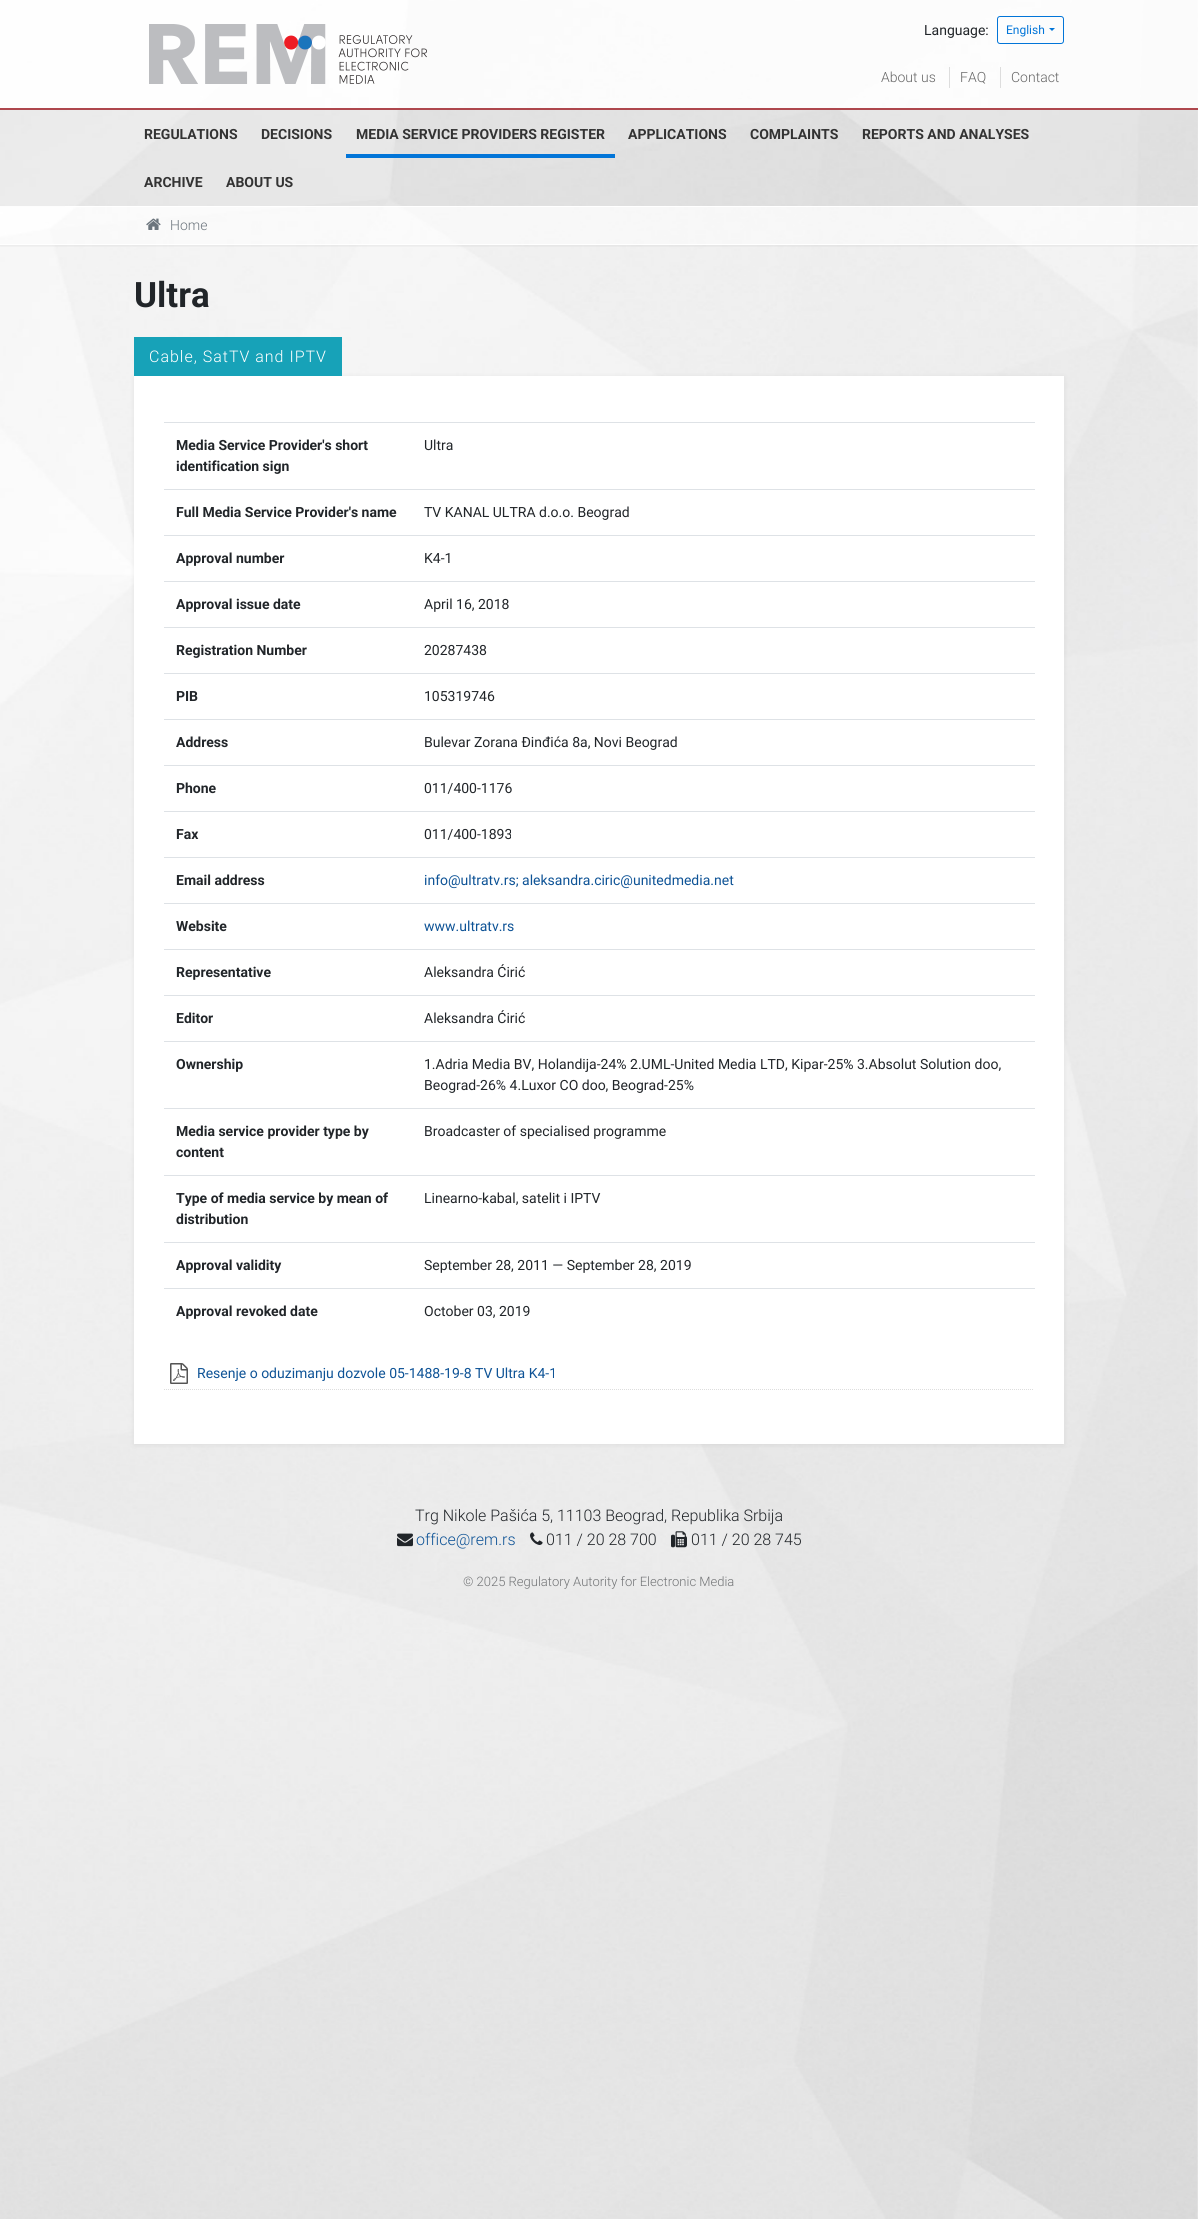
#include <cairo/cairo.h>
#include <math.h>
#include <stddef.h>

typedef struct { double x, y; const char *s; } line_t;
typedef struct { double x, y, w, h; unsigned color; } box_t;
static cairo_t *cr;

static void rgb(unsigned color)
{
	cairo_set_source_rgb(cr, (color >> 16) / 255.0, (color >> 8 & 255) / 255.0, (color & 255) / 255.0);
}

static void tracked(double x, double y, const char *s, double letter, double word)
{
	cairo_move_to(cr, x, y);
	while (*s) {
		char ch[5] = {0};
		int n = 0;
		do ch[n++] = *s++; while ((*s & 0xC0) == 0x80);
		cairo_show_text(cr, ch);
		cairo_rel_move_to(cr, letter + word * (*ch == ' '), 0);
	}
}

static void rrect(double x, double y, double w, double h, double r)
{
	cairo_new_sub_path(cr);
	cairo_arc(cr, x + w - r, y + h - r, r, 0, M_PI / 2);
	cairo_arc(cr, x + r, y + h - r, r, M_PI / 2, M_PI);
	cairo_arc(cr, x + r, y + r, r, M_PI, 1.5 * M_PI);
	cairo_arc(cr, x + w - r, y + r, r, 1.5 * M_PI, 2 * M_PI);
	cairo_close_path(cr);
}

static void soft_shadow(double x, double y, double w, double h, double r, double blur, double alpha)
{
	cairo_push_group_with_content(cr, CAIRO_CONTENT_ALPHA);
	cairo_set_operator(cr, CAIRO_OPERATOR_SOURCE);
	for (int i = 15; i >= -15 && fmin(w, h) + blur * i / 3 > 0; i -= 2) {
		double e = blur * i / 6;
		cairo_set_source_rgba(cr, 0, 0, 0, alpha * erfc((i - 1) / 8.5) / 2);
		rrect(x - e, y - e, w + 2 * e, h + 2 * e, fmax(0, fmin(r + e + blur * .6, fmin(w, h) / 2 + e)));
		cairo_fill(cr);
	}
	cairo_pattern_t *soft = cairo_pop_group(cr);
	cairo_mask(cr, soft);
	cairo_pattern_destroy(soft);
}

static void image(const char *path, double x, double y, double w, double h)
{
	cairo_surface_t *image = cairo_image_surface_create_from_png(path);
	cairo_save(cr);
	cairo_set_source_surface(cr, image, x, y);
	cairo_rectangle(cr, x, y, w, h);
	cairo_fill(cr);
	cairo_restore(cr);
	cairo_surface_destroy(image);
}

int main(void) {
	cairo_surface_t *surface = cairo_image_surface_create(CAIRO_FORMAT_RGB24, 1198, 2219);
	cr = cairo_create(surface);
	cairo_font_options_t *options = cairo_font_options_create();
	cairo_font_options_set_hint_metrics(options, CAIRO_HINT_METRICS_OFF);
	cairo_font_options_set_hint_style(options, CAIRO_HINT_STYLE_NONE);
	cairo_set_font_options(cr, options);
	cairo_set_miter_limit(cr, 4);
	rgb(0xffffff);
	cairo_paint(cr);
	image("img/1.png", 0, 0, 1198, 2219);
	cairo_set_source_rgba(cr, 1, 1, 1, 0.75);
	cairo_rectangle(cr, 0, 0, 1198, 108);
	cairo_fill(cr);
	image("img/2.png", 149, 24, 278, 60);
	rrect(997.5, 16.5, 66, 27, 2.5);
	rgb(0x0275d8);
	cairo_set_line_width(cr, 1);
	cairo_stroke(cr);
	cairo_new_path(cr);
	cairo_move_to(cr, 1049, 28);
	cairo_line_to(cr, 1055, 28);
	cairo_line_to(cr, 1052, 31);
	cairo_close_path(cr);
	cairo_fill(cr);
	rgb(0xdddddd);
	cairo_rectangle(cr, 949, 67, 1, 21);
	cairo_fill(cr);
	cairo_rectangle(cr, 1000, 67, 1, 21);
	cairo_fill(cr);
	cairo_set_source_rgba(cr, 0, 0, 0, 0.07);
	cairo_rectangle(cr, 0, 110, 1198, 96);
	cairo_fill(cr);
	rgb(0xae474d);
	cairo_rectangle(cr, 0, 108, 1198, 2);
	cairo_fill(cr);
	rgb(0x0275d8);
	cairo_rectangle(cr, 346, 154, 269, 4);
	cairo_fill(cr);
	cairo_save(cr);
	cairo_rectangle(cr, 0, 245, 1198, 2);
	cairo_clip(cr);
	rgb(0x000000);
	soft_shadow(0, 207, 1198, 39, 0, 1.5, 0.07);
	cairo_restore(cr);
	cairo_set_source_rgba(cr, 1, 1, 1, 0.5);
	cairo_rectangle(cr, 0, 207, 1198, 37);
	cairo_fill(cr);
	rgb(0xffffff);
	cairo_rectangle(cr, 65, 206, 1133, 1);
	cairo_fill(cr);
	cairo_rectangle(cr, 0, 244, 1198, 1);
	cairo_fill(cr);
	image("img/3.png", 146, 218, 15, 12);
	rgb(0x000000);
	soft_shadow(134, 377, 930, 1068, 0, 3, 0.07);
	{
		static const box_t items[] = {
			{134, 337, 208, 39, 0x17a2b8},
			{134, 376, 930, 1068, 0xffffff},
			{164, 422, 871, 1, 0xdee2e6},
			{164, 489, 871, 1, 0xdee2e6},
			{164, 535, 871, 1, 0xdee2e6},
			{164, 581, 871, 1, 0xdee2e6},
			{164, 627, 871, 1, 0xdee2e6},
			{164, 673, 871, 1, 0xdee2e6},
			{164, 719, 871, 1, 0xdee2e6},
			{164, 765, 871, 1, 0xdee2e6},
			{164, 811, 871, 1, 0xdee2e6},
			{164, 857, 871, 1, 0xdee2e6},
			{164, 903, 871, 1, 0xdee2e6},
			{164, 949, 871, 1, 0xdee2e6},
			{164, 995, 871, 1, 0xdee2e6},
			{164, 1041, 871, 1, 0xdee2e6},
			{164, 1108, 871, 1, 0xdee2e6},
			{164, 1175, 871, 1, 0xdee2e6},
			{164, 1242, 871, 1, 0xdee2e6},
			{164, 1288, 871, 1, 0xdee2e6},
		};
		for (size_t i = 0; i < sizeof items / sizeof *items; i++) {
			rgb(items[i].color);
			cairo_rectangle(cr, items[i].x, items[i].y, items[i].w, items[i].h);
			cairo_fill(cr);
		}
	}
	cairo_new_path(cr);
	cairo_move_to(cr, 164, 1389.5);
	cairo_line_to(cr, 1034, 1389.5);
	rgb(0xdddddd);
	cairo_set_dash(cr, (double[]){1, 1}, 2, 0);
	cairo_stroke(cr);
	image("img/4.png", 170, 1363, 18, 21);
	image("img/5.png", 397, 1533, 16, 14);
	image("img/6.png", 530, 1532, 13, 13);
	image("img/7.png", 671, 1531, 16, 17);
	cairo_select_font_face(cr, "Roboto", CAIRO_FONT_SLANT_NORMAL, CAIRO_FONT_WEIGHT_NORMAL);
	cairo_set_font_size(cr, 14);
	rgb(0x212529);
	cairo_move_to(cr, 924, 35);
	cairo_show_text(cr, "Language:");
	cairo_set_font_size(cr, 12);
	rgb(0x0275d8);
	cairo_move_to(cr, 1006, 34);
	cairo_show_text(cr, "English");
	cairo_select_font_face(cr, "Roboto Light", CAIRO_FONT_SLANT_NORMAL, CAIRO_FONT_WEIGHT_NORMAL);
	cairo_set_font_size(cr, 14);
	rgb(0x666666);
	{
		static const line_t items[] = {
			{881, 82, "About us"},
			{960, 82, "FAQ"},
			{1011, 82, "Contact"},
		};
		for (size_t i = 0; i < sizeof items / sizeof *items; i++) {
			cairo_move_to(cr, items[i].x, items[i].y);
			cairo_show_text(cr, items[i].s);
		}
	}
	cairo_select_font_face(cr, "Roboto", CAIRO_FONT_SLANT_NORMAL, CAIRO_FONT_WEIGHT_BOLD);
	rgb(0x333333);
	{
		static const line_t items[] = {
			{144, 139, "REGULATIONS"},
			{261, 139, "DECISIONS"},
			{356, 139, "MEDIA SERVICE PROVIDERS REGISTER"},
			{628, 139, "APPLICATIONS"},
			{750, 139, "COMPLAINTS"},
			{862, 139, "REPORTS AND ANALYSES"},
			{144, 187, "ARCHIVE"},
			{226, 187, "ABOUT US"},
		};
		for (size_t i = 0; i < sizeof items / sizeof *items; i++) {
			cairo_move_to(cr, items[i].x, items[i].y);
			cairo_show_text(cr, items[i].s);
		}
	}
	cairo_select_font_face(cr, "Roboto Light", CAIRO_FONT_SLANT_NORMAL, CAIRO_FONT_WEIGHT_NORMAL);
	rgb(0x6c757d);
	cairo_move_to(cr, 170, 230);
	cairo_show_text(cr, "Home");
	cairo_select_font_face(cr, "Roboto", CAIRO_FONT_SLANT_NORMAL, CAIRO_FONT_WEIGHT_BOLD);
	cairo_set_font_size(cr, 35);
	rgb(0x212529);
	cairo_move_to(cr, 134, 307);
	cairo_show_text(cr, "Ultra");
	cairo_select_font_face(cr, "Roboto Light", CAIRO_FONT_SLANT_NORMAL, CAIRO_FONT_WEIGHT_NORMAL);
	cairo_set_font_size(cr, 16);
	rgb(0xffffff);
	tracked(149, 362, "Cable, SatTV and IPTV", 1, 0);
	cairo_select_font_face(cr, "Roboto", CAIRO_FONT_SLANT_NORMAL, CAIRO_FONT_WEIGHT_BOLD);
	cairo_set_font_size(cr, 14);
	rgb(0x212529);
	cairo_move_to(cr, 176, 450);
	cairo_show_text(cr, "Media Service Provider's short");
	cairo_move_to(cr, 176, 471);
	cairo_show_text(cr, "identification sign");
	cairo_select_font_face(cr, "Roboto", CAIRO_FONT_SLANT_NORMAL, CAIRO_FONT_WEIGHT_NORMAL);
	cairo_move_to(cr, 424, 450);
	cairo_show_text(cr, "Ultra");
	cairo_select_font_face(cr, "Roboto", CAIRO_FONT_SLANT_NORMAL, CAIRO_FONT_WEIGHT_BOLD);
	cairo_move_to(cr, 176, 517);
	cairo_show_text(cr, "Full Media Service Provider's name");
	cairo_select_font_face(cr, "Roboto", CAIRO_FONT_SLANT_NORMAL, CAIRO_FONT_WEIGHT_NORMAL);
	cairo_move_to(cr, 424, 517);
	cairo_show_text(cr, "TV KANAL ULTRA d.o.o. Beograd");
	cairo_select_font_face(cr, "Roboto", CAIRO_FONT_SLANT_NORMAL, CAIRO_FONT_WEIGHT_BOLD);
	cairo_move_to(cr, 176, 563);
	cairo_show_text(cr, "Approval number");
	cairo_select_font_face(cr, "Roboto", CAIRO_FONT_SLANT_NORMAL, CAIRO_FONT_WEIGHT_NORMAL);
	cairo_move_to(cr, 424, 563);
	cairo_show_text(cr, "K4-1");
	cairo_select_font_face(cr, "Roboto", CAIRO_FONT_SLANT_NORMAL, CAIRO_FONT_WEIGHT_BOLD);
	cairo_move_to(cr, 176, 609);
	cairo_show_text(cr, "Approval issue date");
	cairo_select_font_face(cr, "Roboto", CAIRO_FONT_SLANT_NORMAL, CAIRO_FONT_WEIGHT_NORMAL);
	cairo_move_to(cr, 424, 609);
	cairo_show_text(cr, "April 16, 2018");
	cairo_select_font_face(cr, "Roboto", CAIRO_FONT_SLANT_NORMAL, CAIRO_FONT_WEIGHT_BOLD);
	cairo_move_to(cr, 176, 655);
	cairo_show_text(cr, "Registration Number");
	cairo_select_font_face(cr, "Roboto", CAIRO_FONT_SLANT_NORMAL, CAIRO_FONT_WEIGHT_NORMAL);
	cairo_move_to(cr, 424, 655);
	cairo_show_text(cr, "20287438");
	cairo_select_font_face(cr, "Roboto", CAIRO_FONT_SLANT_NORMAL, CAIRO_FONT_WEIGHT_BOLD);
	cairo_move_to(cr, 176, 701);
	cairo_show_text(cr, "PIB");
	cairo_select_font_face(cr, "Roboto", CAIRO_FONT_SLANT_NORMAL, CAIRO_FONT_WEIGHT_NORMAL);
	cairo_move_to(cr, 424, 701);
	cairo_show_text(cr, "105319746");
	cairo_select_font_face(cr, "Roboto", CAIRO_FONT_SLANT_NORMAL, CAIRO_FONT_WEIGHT_BOLD);
	cairo_move_to(cr, 176, 747);
	cairo_show_text(cr, "Address");
	cairo_select_font_face(cr, "Roboto", CAIRO_FONT_SLANT_NORMAL, CAIRO_FONT_WEIGHT_NORMAL);
	cairo_move_to(cr, 424, 747);
	cairo_show_text(cr, "Bulevar Zorana Đinđića 8a, Novi Beograd");
	cairo_select_font_face(cr, "Roboto", CAIRO_FONT_SLANT_NORMAL, CAIRO_FONT_WEIGHT_BOLD);
	cairo_move_to(cr, 176, 793);
	cairo_show_text(cr, "Phone");
	cairo_select_font_face(cr, "Roboto", CAIRO_FONT_SLANT_NORMAL, CAIRO_FONT_WEIGHT_NORMAL);
	cairo_move_to(cr, 424, 793);
	cairo_show_text(cr, "011/400-1176");
	cairo_select_font_face(cr, "Roboto", CAIRO_FONT_SLANT_NORMAL, CAIRO_FONT_WEIGHT_BOLD);
	cairo_move_to(cr, 176, 839);
	cairo_show_text(cr, "Fax");
	cairo_select_font_face(cr, "Roboto", CAIRO_FONT_SLANT_NORMAL, CAIRO_FONT_WEIGHT_NORMAL);
	cairo_move_to(cr, 424, 839);
	cairo_show_text(cr, "011/400-1893");
	cairo_select_font_face(cr, "Roboto", CAIRO_FONT_SLANT_NORMAL, CAIRO_FONT_WEIGHT_BOLD);
	cairo_move_to(cr, 176, 885);
	cairo_show_text(cr, "Email address");
	cairo_select_font_face(cr, "Roboto", CAIRO_FONT_SLANT_NORMAL, CAIRO_FONT_WEIGHT_NORMAL);
	rgb(0x0e5396);
	cairo_move_to(cr, 424, 885);
	cairo_show_text(cr, "info@ultratv.rs; aleksandra.ciric@unitedmedia.net");
	cairo_select_font_face(cr, "Roboto", CAIRO_FONT_SLANT_NORMAL, CAIRO_FONT_WEIGHT_BOLD);
	rgb(0x212529);
	cairo_move_to(cr, 176, 931);
	cairo_show_text(cr, "Website");
	cairo_select_font_face(cr, "Roboto", CAIRO_FONT_SLANT_NORMAL, CAIRO_FONT_WEIGHT_NORMAL);
	rgb(0x0e5396);
	cairo_move_to(cr, 424, 931);
	cairo_show_text(cr, "www.ultratv.rs");
	cairo_select_font_face(cr, "Roboto", CAIRO_FONT_SLANT_NORMAL, CAIRO_FONT_WEIGHT_BOLD);
	rgb(0x212529);
	cairo_move_to(cr, 176, 977);
	cairo_show_text(cr, "Representative");
	cairo_select_font_face(cr, "Roboto", CAIRO_FONT_SLANT_NORMAL, CAIRO_FONT_WEIGHT_NORMAL);
	cairo_move_to(cr, 424, 977);
	cairo_show_text(cr, "Aleksandra Ćirić");
	cairo_select_font_face(cr, "Roboto", CAIRO_FONT_SLANT_NORMAL, CAIRO_FONT_WEIGHT_BOLD);
	cairo_move_to(cr, 176, 1023);
	cairo_show_text(cr, "Editor");
	cairo_select_font_face(cr, "Roboto", CAIRO_FONT_SLANT_NORMAL, CAIRO_FONT_WEIGHT_NORMAL);
	cairo_move_to(cr, 424, 1023);
	cairo_show_text(cr, "Aleksandra Ćirić");
	cairo_select_font_face(cr, "Roboto", CAIRO_FONT_SLANT_NORMAL, CAIRO_FONT_WEIGHT_BOLD);
	cairo_move_to(cr, 176, 1069);
	cairo_show_text(cr, "Ownership");
	cairo_select_font_face(cr, "Roboto", CAIRO_FONT_SLANT_NORMAL, CAIRO_FONT_WEIGHT_NORMAL);
	cairo_move_to(cr, 424, 1069);
	cairo_show_text(cr, "1.Adria Media BV, Holandija-24% 2.UML-United Media LTD, Kipar-25% 3.Absolut Solution doo,");
	cairo_move_to(cr, 424, 1090);
	cairo_show_text(cr, "Beograd-26% 4.Luxor CO doo, Beograd-25%");
	cairo_select_font_face(cr, "Roboto", CAIRO_FONT_SLANT_NORMAL, CAIRO_FONT_WEIGHT_BOLD);
	cairo_move_to(cr, 176, 1136);
	cairo_show_text(cr, "Media service provider type by");
	cairo_move_to(cr, 176, 1157);
	cairo_show_text(cr, "content");
	cairo_select_font_face(cr, "Roboto", CAIRO_FONT_SLANT_NORMAL, CAIRO_FONT_WEIGHT_NORMAL);
	cairo_move_to(cr, 424, 1136);
	cairo_show_text(cr, "Broadcaster of specialised programme");
	cairo_select_font_face(cr, "Roboto", CAIRO_FONT_SLANT_NORMAL, CAIRO_FONT_WEIGHT_BOLD);
	cairo_move_to(cr, 176, 1203);
	cairo_show_text(cr, "Type of media service by mean of");
	cairo_move_to(cr, 176, 1224);
	cairo_show_text(cr, "distribution");
	cairo_select_font_face(cr, "Roboto", CAIRO_FONT_SLANT_NORMAL, CAIRO_FONT_WEIGHT_NORMAL);
	cairo_move_to(cr, 424, 1203);
	cairo_show_text(cr, "Linearno-kabal, satelit i IPTV");
	cairo_select_font_face(cr, "Roboto", CAIRO_FONT_SLANT_NORMAL, CAIRO_FONT_WEIGHT_BOLD);
	cairo_move_to(cr, 176, 1270);
	cairo_show_text(cr, "Approval validity");
	cairo_select_font_face(cr, "Roboto", CAIRO_FONT_SLANT_NORMAL, CAIRO_FONT_WEIGHT_NORMAL);
	cairo_move_to(cr, 424, 1270);
	cairo_show_text(cr, "September 28, 2011 — September 28, 2019");
	cairo_select_font_face(cr, "Roboto", CAIRO_FONT_SLANT_NORMAL, CAIRO_FONT_WEIGHT_BOLD);
	cairo_move_to(cr, 176, 1316);
	cairo_show_text(cr, "Approval revoked date");
	cairo_select_font_face(cr, "Roboto", CAIRO_FONT_SLANT_NORMAL, CAIRO_FONT_WEIGHT_NORMAL);
	cairo_move_to(cr, 424, 1316);
	cairo_show_text(cr, "October 03, 2019");
	rgb(0x0e5396);
	cairo_move_to(cr, 197, 1378);
	cairo_show_text(cr, "Resenje o oduzimanju dozvole 05-1488-19-8 TV Ultra K4-1");
	cairo_select_font_face(cr, "Roboto Light", CAIRO_FONT_SLANT_NORMAL, CAIRO_FONT_WEIGHT_NORMAL);
	cairo_set_font_size(cr, 16);
	rgb(0x212529);
	cairo_move_to(cr, 415, 1521);
	cairo_show_text(cr, "Trg Nikole Pašića 5, 11103 Beograd, Republika Srbija");
	rgb(0x0e5396);
	cairo_move_to(cr, 416, 1545);
	cairo_show_text(cr, "office@rem.rs");
	rgb(0x212529);
	cairo_move_to(cr, 546, 1545);
	cairo_show_text(cr, "011 / 20 28 700");
	cairo_move_to(cr, 691, 1545);
	cairo_show_text(cr, "011 / 20 28 745");
	cairo_set_font_size(cr, 13);
	rgb(0x727476);
	cairo_move_to(cr, 463, 1586);
	cairo_show_text(cr, "© 2025 Regulatory Autority for Electronic Media");
	cairo_surface_write_to_png(surface, "page.png");
	cairo_font_options_destroy(options);
	cairo_destroy(cr);
	cairo_surface_destroy(surface);
	return 0;
}
